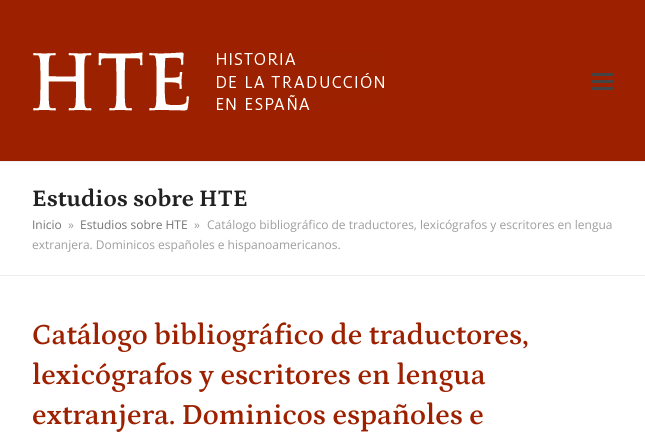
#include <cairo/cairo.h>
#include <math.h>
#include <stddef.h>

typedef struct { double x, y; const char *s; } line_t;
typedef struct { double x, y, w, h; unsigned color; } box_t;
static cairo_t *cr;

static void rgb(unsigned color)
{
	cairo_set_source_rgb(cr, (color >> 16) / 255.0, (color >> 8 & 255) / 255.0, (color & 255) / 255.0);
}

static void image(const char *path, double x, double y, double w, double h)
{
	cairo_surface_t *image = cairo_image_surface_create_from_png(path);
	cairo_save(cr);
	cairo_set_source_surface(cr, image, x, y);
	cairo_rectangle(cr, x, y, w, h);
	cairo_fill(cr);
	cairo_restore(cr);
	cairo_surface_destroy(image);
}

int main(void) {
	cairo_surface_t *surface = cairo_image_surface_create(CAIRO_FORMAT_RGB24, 645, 440);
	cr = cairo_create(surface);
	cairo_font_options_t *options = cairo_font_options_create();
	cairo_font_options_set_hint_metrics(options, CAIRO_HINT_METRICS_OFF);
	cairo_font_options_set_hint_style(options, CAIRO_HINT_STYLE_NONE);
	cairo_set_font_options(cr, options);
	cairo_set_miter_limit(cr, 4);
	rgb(0xffffff);
	cairo_paint(cr);
	rgb(0x9d2100);
	cairo_rectangle(cr, 0, 0, 645, 161);
	cairo_fill(cr);
	image("img/1.png", 33, 52, 351, 59);
	{
		static const box_t items[] = {
			{591, 80, 22, 3, 0x444444},
			{591, 73, 22, 3, 0x444444},
			{591, 87, 22, 3, 0x444444},
			{0, 161, 645, 1, 0xeeeeee},
			{0, 275, 645, 1, 0xeeeeee},
		};
		for (size_t i = 0; i < sizeof items / sizeof *items; i++) {
			rgb(items[i].color);
			cairo_rectangle(cr, items[i].x, items[i].y, items[i].w, items[i].h);
			cairo_fill(cr);
		}
	}
	cairo_select_font_face(cr, "Petrona", CAIRO_FONT_SLANT_NORMAL, CAIRO_FONT_WEIGHT_BOLD);
	cairo_set_font_size(cr, 24);
	rgb(0x222222);
	cairo_move_to(cr, 32, 206);
	cairo_show_text(cr, "Estudios sobre HTE");
	cairo_select_font_face(cr, "Open Sans", CAIRO_FONT_SLANT_NORMAL, CAIRO_FONT_WEIGHT_NORMAL);
	cairo_set_font_size(cr, 12);
	rgb(0x757575);
	cairo_move_to(cr, 32, 229);
	cairo_show_text(cr, "Inicio");
	rgb(0x9e9e9e);
	cairo_move_to(cr, 68, 229);
	cairo_show_text(cr, "»");
	rgb(0x757575);
	cairo_move_to(cr, 80, 229);
	cairo_show_text(cr, "Estudios sobre HTE");
	rgb(0x9e9e9e);
	{
		static const line_t items[] = {
			{194, 229, "»"},
			{207, 229, "Catálogo bibliográfico de traductores, lexicógrafos y escritores en lengua"},
			{32, 249, "extranjera. Dominicos españoles e hispanoamericanos."},
		};
		for (size_t i = 0; i < sizeof items / sizeof *items; i++) {
			cairo_move_to(cr, items[i].x, items[i].y);
			cairo_show_text(cr, items[i].s);
		}
	}
	cairo_select_font_face(cr, "Petrona SemiBold", CAIRO_FONT_SLANT_NORMAL, CAIRO_FONT_WEIGHT_NORMAL);
	cairo_set_font_size(cr, 29.5);
	rgb(0x9d2100);
	{
		static const line_t items[] = {
			{32, 344, "Catálogo bibliográfico de traductores,"},
			{32, 384, "lexicógrafos y escritores en lengua"},
			{32, 424, "extranjera. Dominicos españoles e"},
		};
		for (size_t i = 0; i < sizeof items / sizeof *items; i++) {
			cairo_move_to(cr, items[i].x, items[i].y);
			cairo_show_text(cr, items[i].s);
		}
	}
	cairo_surface_write_to_png(surface, "page.png");
	cairo_font_options_destroy(options);
	cairo_destroy(cr);
	cairo_surface_destroy(surface);
	return 0;
}
